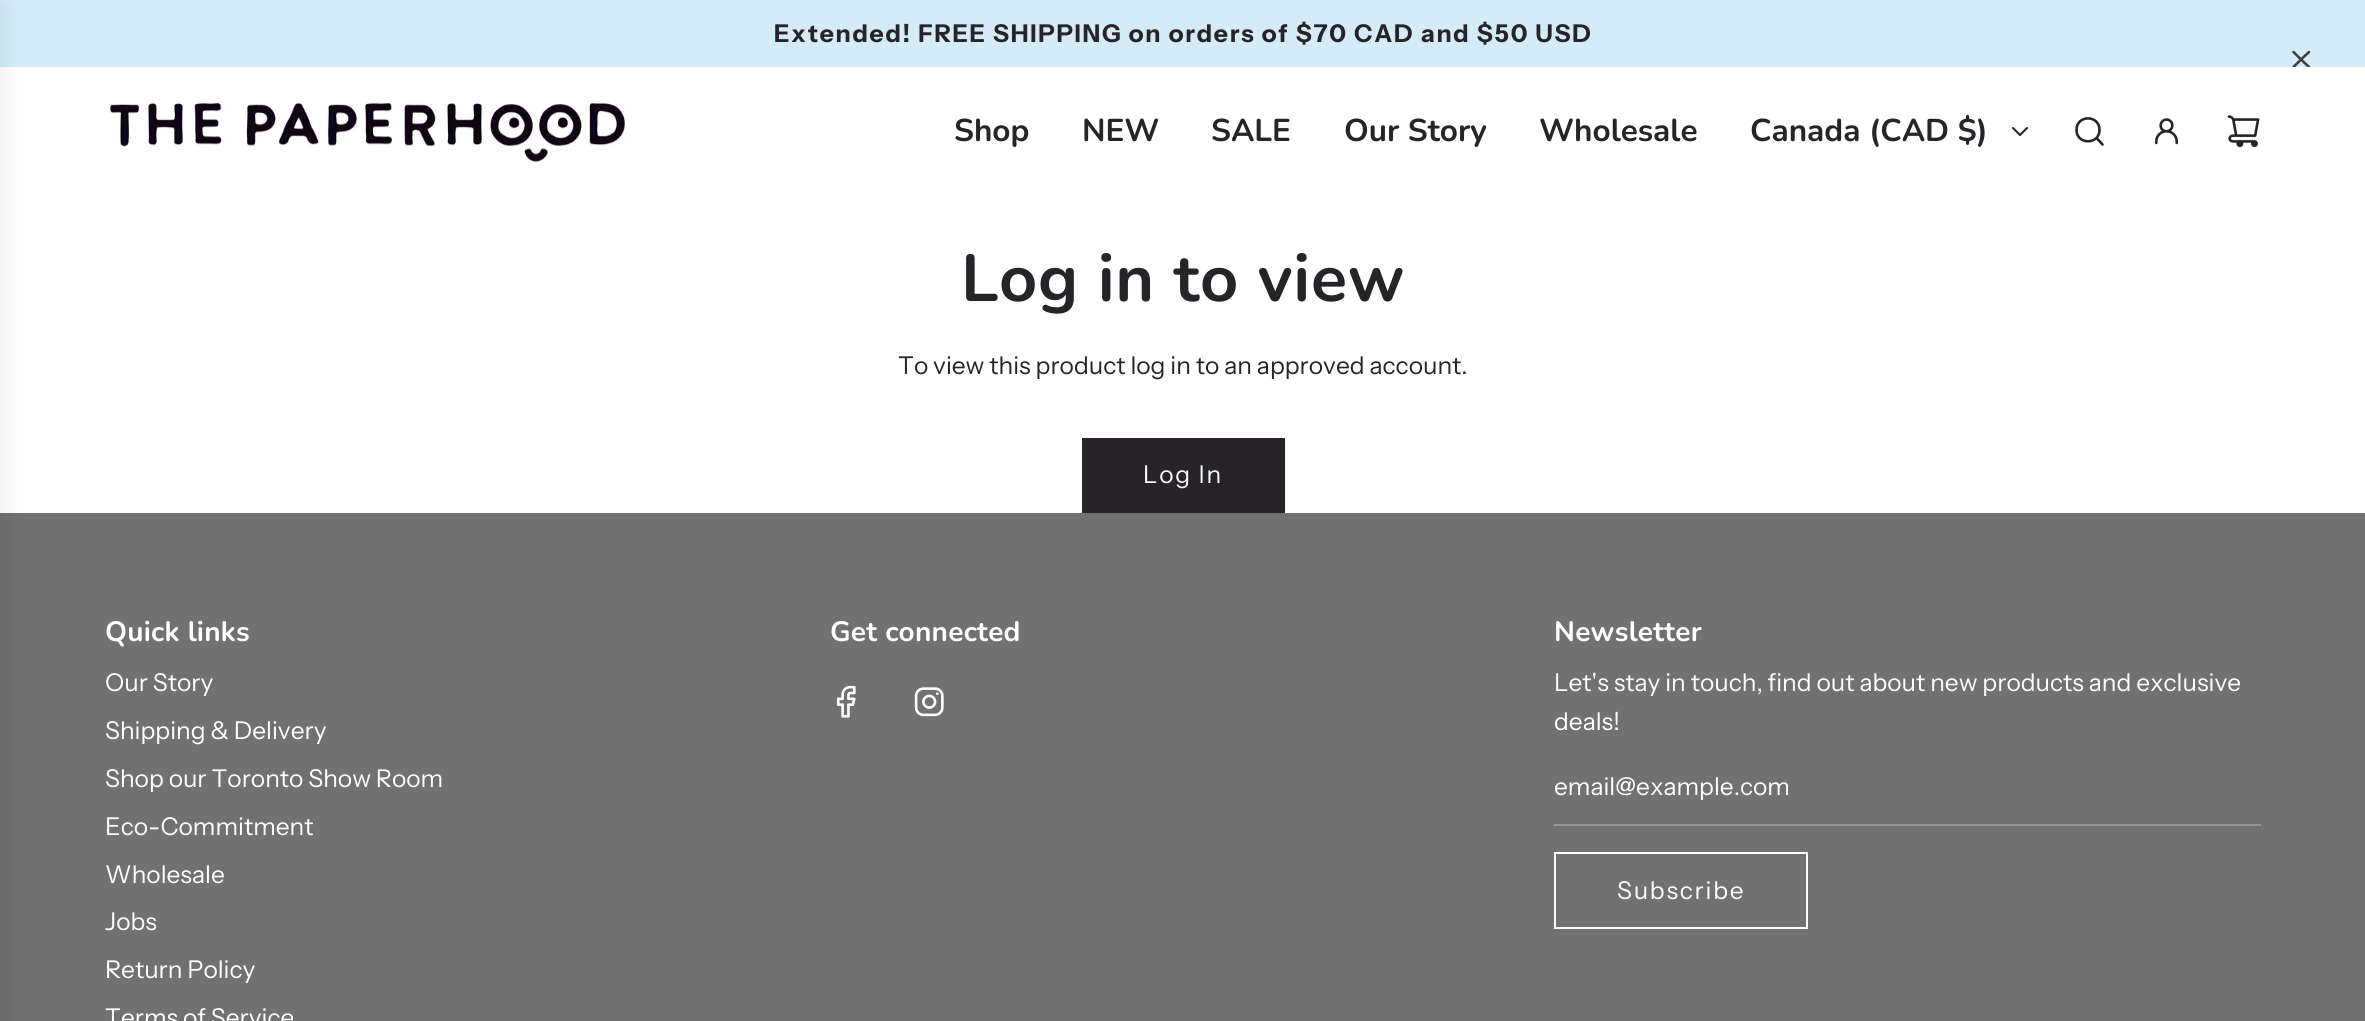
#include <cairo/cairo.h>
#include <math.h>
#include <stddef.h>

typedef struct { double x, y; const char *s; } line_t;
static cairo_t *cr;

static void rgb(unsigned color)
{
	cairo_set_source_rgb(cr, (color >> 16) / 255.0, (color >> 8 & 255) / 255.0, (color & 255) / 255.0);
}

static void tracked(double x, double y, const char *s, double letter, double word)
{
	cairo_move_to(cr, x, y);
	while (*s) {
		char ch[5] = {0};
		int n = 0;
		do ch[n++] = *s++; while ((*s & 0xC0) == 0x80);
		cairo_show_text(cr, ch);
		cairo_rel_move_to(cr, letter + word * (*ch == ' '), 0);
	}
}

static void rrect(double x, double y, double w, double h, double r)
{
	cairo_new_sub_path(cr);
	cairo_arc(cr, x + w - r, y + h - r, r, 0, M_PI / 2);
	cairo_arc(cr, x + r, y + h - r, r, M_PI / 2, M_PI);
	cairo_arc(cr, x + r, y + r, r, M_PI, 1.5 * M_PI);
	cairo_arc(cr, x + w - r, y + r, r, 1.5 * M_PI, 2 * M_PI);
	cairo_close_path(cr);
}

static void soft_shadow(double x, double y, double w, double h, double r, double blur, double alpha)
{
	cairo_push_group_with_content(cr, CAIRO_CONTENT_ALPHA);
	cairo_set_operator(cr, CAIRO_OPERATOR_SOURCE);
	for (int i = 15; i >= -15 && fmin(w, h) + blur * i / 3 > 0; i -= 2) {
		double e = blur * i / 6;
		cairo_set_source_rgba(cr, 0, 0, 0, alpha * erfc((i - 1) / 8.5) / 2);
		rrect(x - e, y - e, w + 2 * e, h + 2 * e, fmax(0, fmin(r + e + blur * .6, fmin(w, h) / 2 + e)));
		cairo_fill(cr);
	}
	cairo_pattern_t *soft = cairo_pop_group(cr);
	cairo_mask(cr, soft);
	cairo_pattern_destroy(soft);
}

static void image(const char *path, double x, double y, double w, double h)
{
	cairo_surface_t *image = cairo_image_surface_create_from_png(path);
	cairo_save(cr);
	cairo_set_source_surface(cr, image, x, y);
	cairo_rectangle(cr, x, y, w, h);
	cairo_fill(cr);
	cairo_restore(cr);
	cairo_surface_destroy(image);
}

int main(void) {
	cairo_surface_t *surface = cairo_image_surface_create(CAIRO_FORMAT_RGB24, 2365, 1021);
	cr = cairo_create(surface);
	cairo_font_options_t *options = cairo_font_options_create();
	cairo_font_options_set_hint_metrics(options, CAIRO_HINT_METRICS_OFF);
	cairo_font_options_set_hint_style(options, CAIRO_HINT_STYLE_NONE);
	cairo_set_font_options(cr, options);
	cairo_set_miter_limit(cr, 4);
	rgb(0xffffff);
	cairo_paint(cr);
	rgb(0xd5ebf7);
	cairo_rectangle(cr, 0, 0, 2365, 67);
	cairo_fill(cr);
	cairo_new_path(cr);
	cairo_move_to(cr, 2293.5, 67);
	cairo_line_to(cr, 2301, 59.5);
	cairo_line_to(cr, 2309, 67);
	cairo_move_to(cr, 2309, 52);
	cairo_line_to(cr, 2301, 59.5);
	cairo_line_to(cr, 2293.5, 52);
	rgb(0x414141);
	cairo_set_line_width(cr, 2.6);
	cairo_set_line_cap(cr, CAIRO_LINE_CAP_ROUND);
	cairo_set_line_join(cr, CAIRO_LINE_JOIN_ROUND);
	cairo_stroke(cr);
	rgb(0xffffff);
	cairo_rectangle(cr, 2292, 67, 19, 2);
	cairo_fill(cr);
	rgb(0x717171);
	cairo_rectangle(cr, 0, 513, 2365, 508);
	cairo_fill(cr);
	rgb(0x000000);
	soft_shadow(-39, 9, 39, 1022, 0, 13, 0.1);
	image("img/1.png", 109, 101, 517, 61);
	cairo_new_path(cr);
	cairo_move_to(cr, 2013, 128);
	cairo_line_to(cr, 2020, 135);
	cairo_line_to(cr, 2027, 128);
	rgb(0x262428);
	cairo_set_line_width(cr, 2.1);
	cairo_stroke(cr);
	cairo_new_path(cr);
	cairo_move_to(cr, 2097, 138.5);
	cairo_line_to(cr, 2102.5, 144.5);
	cairo_move_to(cr, 2076.5, 130);
	cairo_curve_to(cr, 2076.5, 145, 2099.5, 145, 2099.5, 130);
	cairo_curve_to(cr, 2099.5, 114.5, 2076.5, 114.5, 2076.5, 130);
	cairo_close_path(cr);
	cairo_set_line_width(cr, 2.6);
	cairo_stroke(cr);
	image("img/2.png", 2155, 118, 23, 27);
	image("img/3.png", 2227, 115, 33, 33);
	cairo_rectangle(cr, 1082, 438, 203, 75);
	cairo_fill(cr);
	image("img/4.png", 836, 685, 20, 33);
	image("img/5.png", 914, 687, 30, 30);
	rgb(0x959595);
	cairo_rectangle(cr, 1554, 824, 707, 2);
	cairo_fill(cr);
	cairo_rectangle(cr, 1555, 853, 252, 75);
	rgb(0xffffff);
	cairo_set_line_width(cr, 2);
	cairo_set_line_cap(cr, CAIRO_LINE_CAP_BUTT);
	cairo_set_line_join(cr, CAIRO_LINE_JOIN_MITER);
	cairo_stroke(cr);
	cairo_select_font_face(cr, "Instrument Sans", CAIRO_FONT_SLANT_NORMAL, CAIRO_FONT_WEIGHT_BOLD);
	cairo_set_font_size(cr, 24.5);
	rgb(0x262428);
	tracked(774, 42, "Extended! FREE SHIPPING on orders of $70 CAD and $50 USD", 1.75, 0);
	cairo_select_font_face(cr, "Nunito", CAIRO_FONT_SLANT_NORMAL, CAIRO_FONT_WEIGHT_BOLD);
	cairo_set_font_size(cr, 31.5);
	{
		static const line_t items[] = {
			{954, 141, "Shop"},
			{1082, 141, "NEW"},
			{1211, 141, "SALE"},
			{1344, 141, "Our Story"},
			{1539, 141, "Wholesale"},
			{1750, 141, "Canada (CAD $)"},
		};
		for (size_t i = 0; i < sizeof items / sizeof *items; i++) {
			cairo_move_to(cr, items[i].x, items[i].y);
			cairo_show_text(cr, items[i].s);
		}
	}
	cairo_set_font_size(cr, 66.5);
	tracked(961, 301, "Log in to view", 0.7, 0);
	cairo_select_font_face(cr, "Instrument Sans", CAIRO_FONT_SLANT_NORMAL, CAIRO_FONT_WEIGHT_NORMAL);
	cairo_set_font_size(cr, 24.5);
	cairo_move_to(cr, 898, 374);
	cairo_show_text(cr, "To view this product log in to an approved account.");
	rgb(0xffffff);
	tracked(1143, 483, "Log In", 1.75, 0);
	cairo_select_font_face(cr, "Nunito", CAIRO_FONT_SLANT_NORMAL, CAIRO_FONT_WEIGHT_BOLD);
	cairo_set_font_size(cr, 28);
	tracked(105, 641, "Quick links", 0.25, 0);
	cairo_select_font_face(cr, "Instrument Sans", CAIRO_FONT_SLANT_NORMAL, CAIRO_FONT_WEIGHT_NORMAL);
	cairo_set_font_size(cr, 24.5);
	{
		static const line_t items[] = {
			{105, 691, "Our Story"},
			{105, 739, "Shipping & Delivery"},
			{105, 787, "Shop our Toronto Show Room"},
			{105, 835, "Eco-Commitment"},
			{105, 883, "Wholesale"},
			{105, 930, "Jobs"},
			{105, 978, "Return Policy"},
			{105, 1026, "Terms of Service"},
		};
		for (size_t i = 0; i < sizeof items / sizeof *items; i++) {
			cairo_move_to(cr, items[i].x, items[i].y);
			cairo_show_text(cr, items[i].s);
		}
	}
	cairo_select_font_face(cr, "Nunito", CAIRO_FONT_SLANT_NORMAL, CAIRO_FONT_WEIGHT_BOLD);
	cairo_set_font_size(cr, 28);
	tracked(830, 641, "Get connected", 0.25, 0);
	tracked(1554, 641, "Newsletter", 0.25, 0);
	cairo_select_font_face(cr, "Instrument Sans", CAIRO_FONT_SLANT_NORMAL, CAIRO_FONT_WEIGHT_NORMAL);
	cairo_set_font_size(cr, 24.5);
	{
		static const line_t items[] = {
			{1554, 691, "Let's stay in touch, find out about new products and exclusive"},
			{1554, 730, "deals!"},
			{1554, 795, "email@example.com"},
		};
		for (size_t i = 0; i < sizeof items / sizeof *items; i++) {
			cairo_move_to(cr, items[i].x, items[i].y);
			cairo_show_text(cr, items[i].s);
		}
	}
	tracked(1617, 899, "Subscribe", 1.75, 0);
	cairo_surface_write_to_png(surface, "page.png");
	cairo_font_options_destroy(options);
	cairo_destroy(cr);
	cairo_surface_destroy(surface);
	return 0;
}
